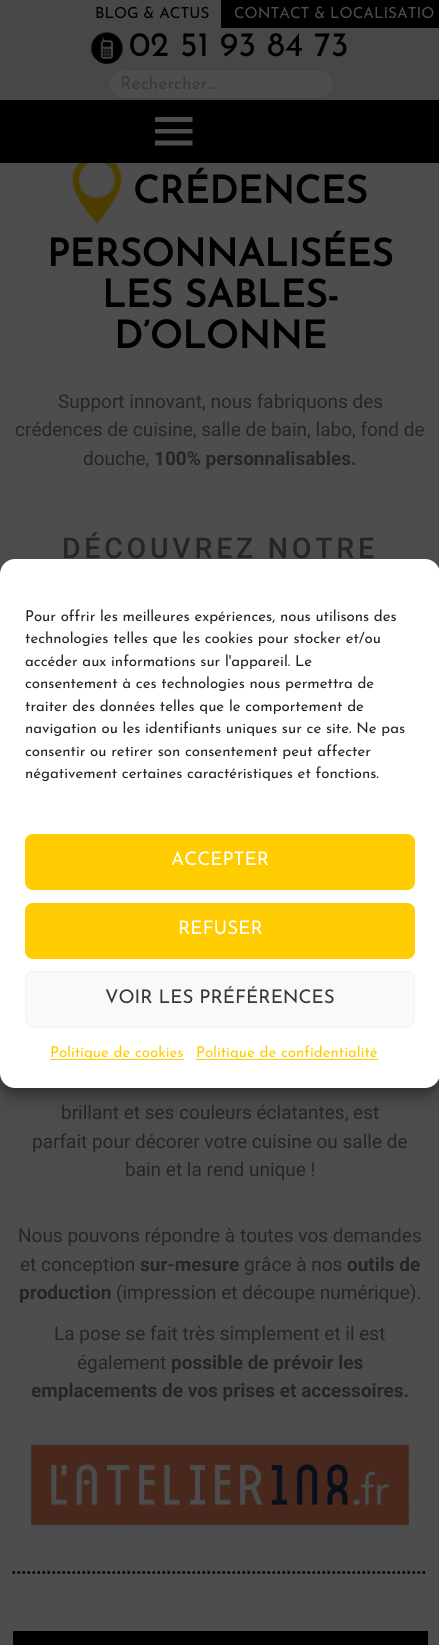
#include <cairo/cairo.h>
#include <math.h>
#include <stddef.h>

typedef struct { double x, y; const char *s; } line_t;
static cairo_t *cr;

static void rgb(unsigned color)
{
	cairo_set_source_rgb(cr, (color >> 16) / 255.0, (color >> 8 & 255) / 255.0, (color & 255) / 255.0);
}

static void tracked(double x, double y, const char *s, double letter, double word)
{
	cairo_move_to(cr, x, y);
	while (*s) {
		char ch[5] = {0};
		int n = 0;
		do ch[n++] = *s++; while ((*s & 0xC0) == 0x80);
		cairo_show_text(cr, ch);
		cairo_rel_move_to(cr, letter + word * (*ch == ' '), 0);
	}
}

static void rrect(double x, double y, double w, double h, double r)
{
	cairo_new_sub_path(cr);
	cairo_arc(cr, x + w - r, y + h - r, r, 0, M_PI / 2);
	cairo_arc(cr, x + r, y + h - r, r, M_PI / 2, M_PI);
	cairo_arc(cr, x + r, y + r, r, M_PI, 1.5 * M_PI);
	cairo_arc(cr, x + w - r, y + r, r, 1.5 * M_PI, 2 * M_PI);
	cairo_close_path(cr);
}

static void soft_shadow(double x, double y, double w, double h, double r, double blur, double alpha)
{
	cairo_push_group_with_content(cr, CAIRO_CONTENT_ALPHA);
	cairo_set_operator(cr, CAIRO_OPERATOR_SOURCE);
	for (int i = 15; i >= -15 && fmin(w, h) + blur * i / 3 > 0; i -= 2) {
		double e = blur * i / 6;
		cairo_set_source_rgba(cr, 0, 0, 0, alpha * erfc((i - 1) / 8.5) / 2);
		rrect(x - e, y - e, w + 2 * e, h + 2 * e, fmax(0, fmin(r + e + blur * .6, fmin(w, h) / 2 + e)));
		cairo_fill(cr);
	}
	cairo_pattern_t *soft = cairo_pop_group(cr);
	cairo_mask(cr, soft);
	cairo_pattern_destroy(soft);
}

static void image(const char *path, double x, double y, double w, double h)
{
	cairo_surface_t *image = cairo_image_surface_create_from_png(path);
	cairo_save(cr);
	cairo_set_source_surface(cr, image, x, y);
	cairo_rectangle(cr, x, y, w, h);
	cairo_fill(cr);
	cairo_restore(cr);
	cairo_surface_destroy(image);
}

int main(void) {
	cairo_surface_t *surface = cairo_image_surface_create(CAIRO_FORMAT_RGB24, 439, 1645);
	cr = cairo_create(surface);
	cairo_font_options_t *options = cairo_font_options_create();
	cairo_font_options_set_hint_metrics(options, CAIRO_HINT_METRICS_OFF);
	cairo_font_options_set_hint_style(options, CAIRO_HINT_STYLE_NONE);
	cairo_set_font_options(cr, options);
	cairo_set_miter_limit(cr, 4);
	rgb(0x4d4d4d);
	cairo_paint(cr);
	rgb(0x474747);
	cairo_rectangle(cr, 0, 0, 439, 100);
	cairo_fill(cr);
	rgb(0x000000);
	cairo_rectangle(cr, 221, 0, 218, 28);
	cairo_fill(cr);
	image("img/1.png", 91, 32, 32, 32);
	rgb(0x4d4d4d);
	rrect(108, 69, 225, 30, 15);
	cairo_fill(cr);
	rrect(108.5, 69.5, 224, 29, 14.5);
	cairo_set_source_rgba(cr, 0, 0, 0, 0.1);
	cairo_set_line_width(cr, 1);
	cairo_stroke(cr);
	rgb(0x000000);
	cairo_rectangle(cr, 0, 100, 439, 63);
	cairo_fill(cr);
	rgb(0x4d4d4d);
	cairo_new_path(cr);
	cairo_move_to(cr, 155, 145.5);
	cairo_line_to(cr, 155, 140.5);
	cairo_line_to(cr, 192.5, 140.5);
	cairo_line_to(cr, 192.5, 145.5);
	cairo_close_path(cr);
	cairo_move_to(cr, 155, 117);
	cairo_line_to(cr, 192.5, 117);
	cairo_line_to(cr, 192.5, 122);
	cairo_line_to(cr, 155, 122);
	cairo_close_path(cr);
	cairo_move_to(cr, 155, 133.5);
	cairo_line_to(cr, 155, 129);
	cairo_line_to(cr, 192.5, 129);
	cairo_line_to(cr, 192.5, 133.5);
	cairo_close_path(cr);
	cairo_fill(cr);
	image("img/2.png", 72, 163, 50, 61);
	image("img/3.png", 31, 1445, 378, 80);
	cairo_new_path(cr);
	cairo_move_to(cr, 12.5, 1572.5);
	cairo_line_to(cr, 427.5, 1572.5);
	rgb(0x000000);
	cairo_set_line_width(cr, 2.5);
	cairo_set_dash(cr, (double[]){2.5, 2.5}, 2, 0);
	cairo_stroke(cr);
	cairo_rectangle(cr, 13, 1631, 415, 14);
	cairo_fill(cr);
	rgb(0x000000);
	soft_shadow(0, 566, 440, 529, 15, 4, 0.23);
	soft_shadow(0, 571, 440, 529, 15, 12.5, 0.19);
	rgb(0xffffff);
	rrect(0, 559, 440, 529, 15);
	cairo_fill(cr);
	rgb(0xfecc01);
	rrect(25.5, 834.5, 389, 55, 7.5);
	cairo_fill_preserve(cr);
	cairo_set_line_width(cr, 1);
	cairo_set_dash(cr, NULL, 0, 0);
	cairo_stroke(cr);
	rrect(25.5, 903.5, 389, 55, 7.5);
	cairo_fill_preserve(cr);
	cairo_stroke(cr);
	rgb(0xf9f9f9);
	rrect(25.5, 971.5, 389, 56, 7.5);
	cairo_fill_preserve(cr);
	rgb(0xf2f2f2);
	cairo_stroke(cr);
	rgb(0xfecc01);
	cairo_rectangle(cr, 50, 1059, 134, 1);
	cairo_fill(cr);
	cairo_rectangle(cr, 196, 1059, 182, 1);
	cairo_fill(cr);
	cairo_select_font_face(cr, "Josefin Sans Thin", CAIRO_FONT_SLANT_NORMAL, CAIRO_FONT_WEIGHT_NORMAL);
	cairo_set_font_size(cr, 15.25);
	rgb(0x000000);
	cairo_move_to(cr, 95, 18);
	cairo_show_text(cr, "BLOG & ACTUS");
	rgb(0x4d4d4d);
	cairo_move_to(cr, 234, 18);
	cairo_show_text(cr, "CONTACT & LOCALISATIO");
	cairo_set_font_size(cr, 34.25);
	rgb(0x000000);
	cairo_move_to(cr, 129, 56);
	cairo_show_text(cr, "02 51 93 84 73");
	cairo_set_font_size(cr, 17.5);
	rgb(0x383838);
	cairo_move_to(cr, 120, 89);
	cairo_show_text(cr, "Rechercher…");
	cairo_select_font_face(cr, "Josefin Sans", CAIRO_FONT_SLANT_NORMAL, CAIRO_FONT_WEIGHT_BOLD);
	cairo_set_font_size(cr, 38);
	rgb(0x000000);
	{
		static const line_t items[] = {
			{133, 203, "CRÉDENCES"},
			{47, 266, "PERSONNALISÉES"},
			{102, 307, "LES SABLES-"},
			{114, 348, "D’OLONNE"},
		};
		for (size_t i = 0; i < sizeof items / sizeof *items; i++) {
			cairo_move_to(cr, items[i].x, items[i].y);
			cairo_show_text(cr, items[i].s);
		}
	}
	cairo_select_font_face(cr, "Roboto", CAIRO_FONT_SLANT_NORMAL, CAIRO_FONT_WEIGHT_NORMAL);
	cairo_set_font_size(cr, 19);
	rgb(0x252525);
	{
		static const line_t items[] = {
			{58, 408, "Support innovant, nous fabriquons des"},
			{15, 436, "crédences de cuisine, salle de bain, labo, fond de"},
			{83, 465, "douche,"},
		};
		for (size_t i = 0; i < sizeof items / sizeof *items; i++) {
			cairo_move_to(cr, items[i].x, items[i].y);
			cairo_show_text(cr, items[i].s);
		}
	}
	cairo_select_font_face(cr, "Roboto", CAIRO_FONT_SLANT_NORMAL, CAIRO_FONT_WEIGHT_BOLD);
	cairo_move_to(cr, 154, 465);
	cairo_show_text(cr, "100% personnalisables.");
	cairo_select_font_face(cr, "Roboto Medium", CAIRO_FONT_SLANT_NORMAL, CAIRO_FONT_WEIGHT_NORMAL);
	cairo_set_font_size(cr, 28.5);
	tracked(62, 558, "DÉCOUVREZ NOTRE", 3.75, 0);
	cairo_select_font_face(cr, "Roboto", CAIRO_FONT_SLANT_NORMAL, CAIRO_FONT_WEIGHT_NORMAL);
	cairo_set_font_size(cr, 19);
	{
		static const line_t items[] = {
			{61, 1119, "brillant et ses couleurs éclatantes, est"},
			{32, 1148, "parfait pour décorer votre cuisine ou salle de"},
			{125, 1176, "bain et la rend unique !"},
			{18, 1242, "Nous pouvons répondre à toutes vos demandes"},
			{20, 1271, "et conception"},
		};
		for (size_t i = 0; i < sizeof items / sizeof *items; i++) {
			cairo_move_to(cr, items[i].x, items[i].y);
			cairo_show_text(cr, items[i].s);
		}
	}
	cairo_select_font_face(cr, "Roboto", CAIRO_FONT_SLANT_NORMAL, CAIRO_FONT_WEIGHT_BOLD);
	cairo_move_to(cr, 140, 1271);
	cairo_show_text(cr, "sur-mesure");
	cairo_select_font_face(cr, "Roboto", CAIRO_FONT_SLANT_NORMAL, CAIRO_FONT_WEIGHT_NORMAL);
	cairo_move_to(cr, 244, 1271);
	cairo_show_text(cr, "grâce à nos");
	cairo_select_font_face(cr, "Roboto", CAIRO_FONT_SLANT_NORMAL, CAIRO_FONT_WEIGHT_BOLD);
	cairo_move_to(cr, 347, 1271);
	cairo_show_text(cr, "outils de");
	cairo_move_to(cr, 19, 1299);
	cairo_show_text(cr, "production");
	cairo_select_font_face(cr, "Roboto", CAIRO_FONT_SLANT_NORMAL, CAIRO_FONT_WEIGHT_NORMAL);
	{
		static const line_t items[] = {
			{116, 1299, "(impression et découpe numérique)."},
			{54, 1340, "La pose se fait très simplement et il est"},
			{77, 1369, "également"},
		};
		for (size_t i = 0; i < sizeof items / sizeof *items; i++) {
			cairo_move_to(cr, items[i].x, items[i].y);
			cairo_show_text(cr, items[i].s);
		}
	}
	cairo_select_font_face(cr, "Roboto", CAIRO_FONT_SLANT_NORMAL, CAIRO_FONT_WEIGHT_BOLD);
	cairo_move_to(cr, 171, 1369);
	cairo_show_text(cr, "possible de prévoir les");
	cairo_move_to(cr, 31, 1397);
	cairo_show_text(cr, "emplacements de vos prises et accessoires.");
	cairo_select_font_face(cr, "Josefin Sans Thin", CAIRO_FONT_SLANT_NORMAL, CAIRO_FONT_WEIGHT_NORMAL);
	cairo_set_font_size(cr, 15);
	{
		static const line_t items[] = {
			{25, 621, "Pour offrir les meilleures expériences, nous utilisons des"},
			{25, 643, "technologies telles que les cookies pour stocker et/ou"},
			{25, 666, "accéder aux informations sur l'appareil. Le"},
			{25, 688, "consentement à ces technologies nous permettra de"},
			{25, 711, "traiter des données telles que le comportement de"},
			{25, 733, "navigation ou les identifiants uniques sur ce site. Ne pas"},
			{25, 756, "consentir ou retirer son consentement peut affecter"},
			{25, 778, "négativement certaines caractéristiques et fonctions."},
		};
		for (size_t i = 0; i < sizeof items / sizeof *items; i++) {
			cairo_move_to(cr, items[i].x, items[i].y);
			cairo_show_text(cr, items[i].s);
		}
	}
	cairo_set_font_size(cr, 18.75);
	rgb(0xffffff);
	cairo_move_to(cr, 171, 865);
	cairo_show_text(cr, "ACCEPTER");
	cairo_move_to(cr, 178, 934);
	cairo_show_text(cr, "REFUSER");
	rgb(0x383838);
	cairo_move_to(cr, 105, 1003);
	cairo_show_text(cr, "VOIR LES PRÉFÉRENCES");
	cairo_set_font_size(cr, 15);
	rgb(0xfecc01);
	cairo_move_to(cr, 50, 1057);
	cairo_show_text(cr, "Politique de cookies");
	cairo_move_to(cr, 196, 1057);
	cairo_show_text(cr, "Politique de confidentialité");
	cairo_surface_write_to_png(surface, "page.png");
	cairo_font_options_destroy(options);
	cairo_destroy(cr);
	cairo_surface_destroy(surface);
	return 0;
}
